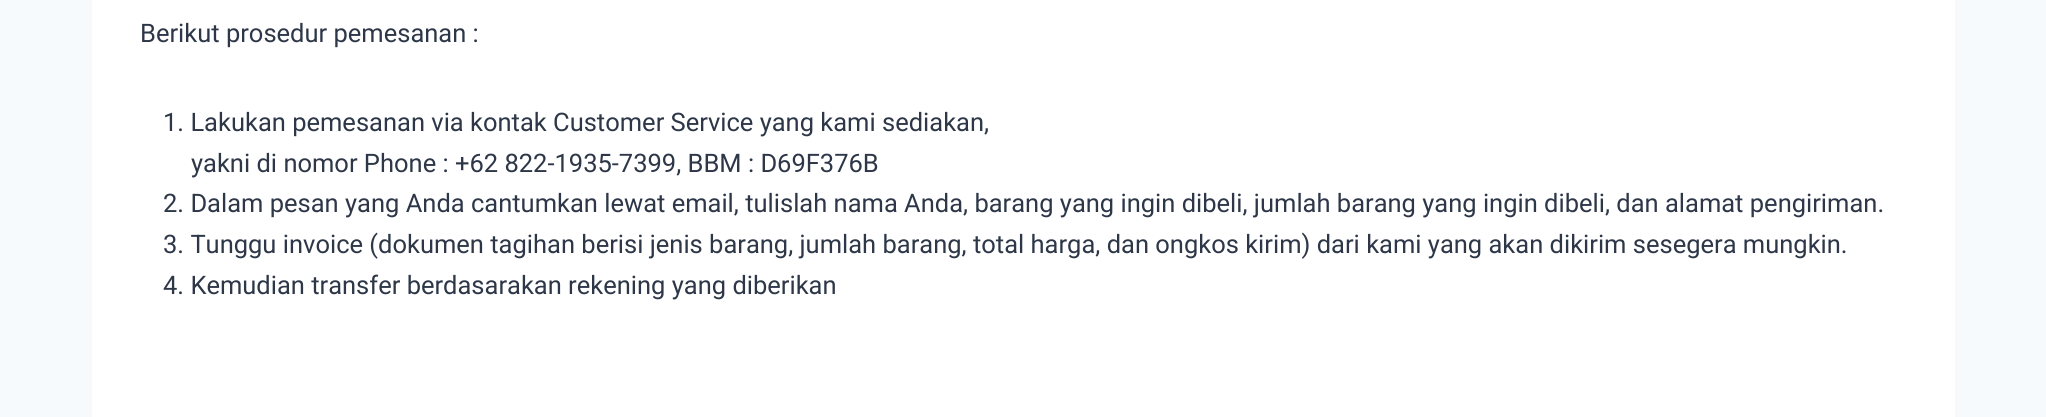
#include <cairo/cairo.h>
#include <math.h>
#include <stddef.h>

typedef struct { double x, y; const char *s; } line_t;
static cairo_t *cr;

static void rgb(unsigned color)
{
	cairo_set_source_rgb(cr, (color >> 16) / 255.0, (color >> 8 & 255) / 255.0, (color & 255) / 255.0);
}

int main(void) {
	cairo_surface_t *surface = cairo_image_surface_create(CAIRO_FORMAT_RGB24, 2046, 417);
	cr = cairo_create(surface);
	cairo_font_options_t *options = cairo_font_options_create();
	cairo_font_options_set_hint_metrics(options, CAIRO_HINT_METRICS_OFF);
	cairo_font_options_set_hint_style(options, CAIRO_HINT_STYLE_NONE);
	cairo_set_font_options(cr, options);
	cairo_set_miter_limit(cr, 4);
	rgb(0xf7fafc);
	cairo_paint(cr);
	rgb(0xffffff);
	cairo_rectangle(cr, 92, 0, 1863, 417);
	cairo_fill(cr);
	cairo_select_font_face(cr, "Roboto", CAIRO_FONT_SLANT_NORMAL, CAIRO_FONT_WEIGHT_NORMAL);
	cairo_set_font_size(cr, 25.5);
	rgb(0x2d3748);
	{
		static const line_t items[] = {
			{140, 42, "Berikut prosedur pemesanan :"},
			{163, 131, "1. Lakukan pemesanan via kontak Customer Service yang kami sediakan,"},
			{191, 172, "yakni di nomor Phone : +62 822-1935-7399, BBM : D69F376B"},
			{163, 212, "2. Dalam pesan yang Anda cantumkan lewat email, tulislah nama Anda, barang yang ingin dibeli, jumlah barang yang ingin dibeli, dan alamat pengiriman."},
			{163, 253, "3. Tunggu invoice (dokumen tagihan berisi jenis barang, jumlah barang, total harga, dan ongkos kirim) dari kami yang akan dikirim sesegera mungkin."},
			{163, 294, "4. Kemudian transfer berdasarakan rekening yang diberikan"},
		};
		for (size_t i = 0; i < sizeof items / sizeof *items; i++) {
			cairo_move_to(cr, items[i].x, items[i].y);
			cairo_show_text(cr, items[i].s);
		}
	}
	cairo_surface_write_to_png(surface, "page.png");
	cairo_font_options_destroy(options);
	cairo_destroy(cr);
	cairo_surface_destroy(surface);
	return 0;
}
